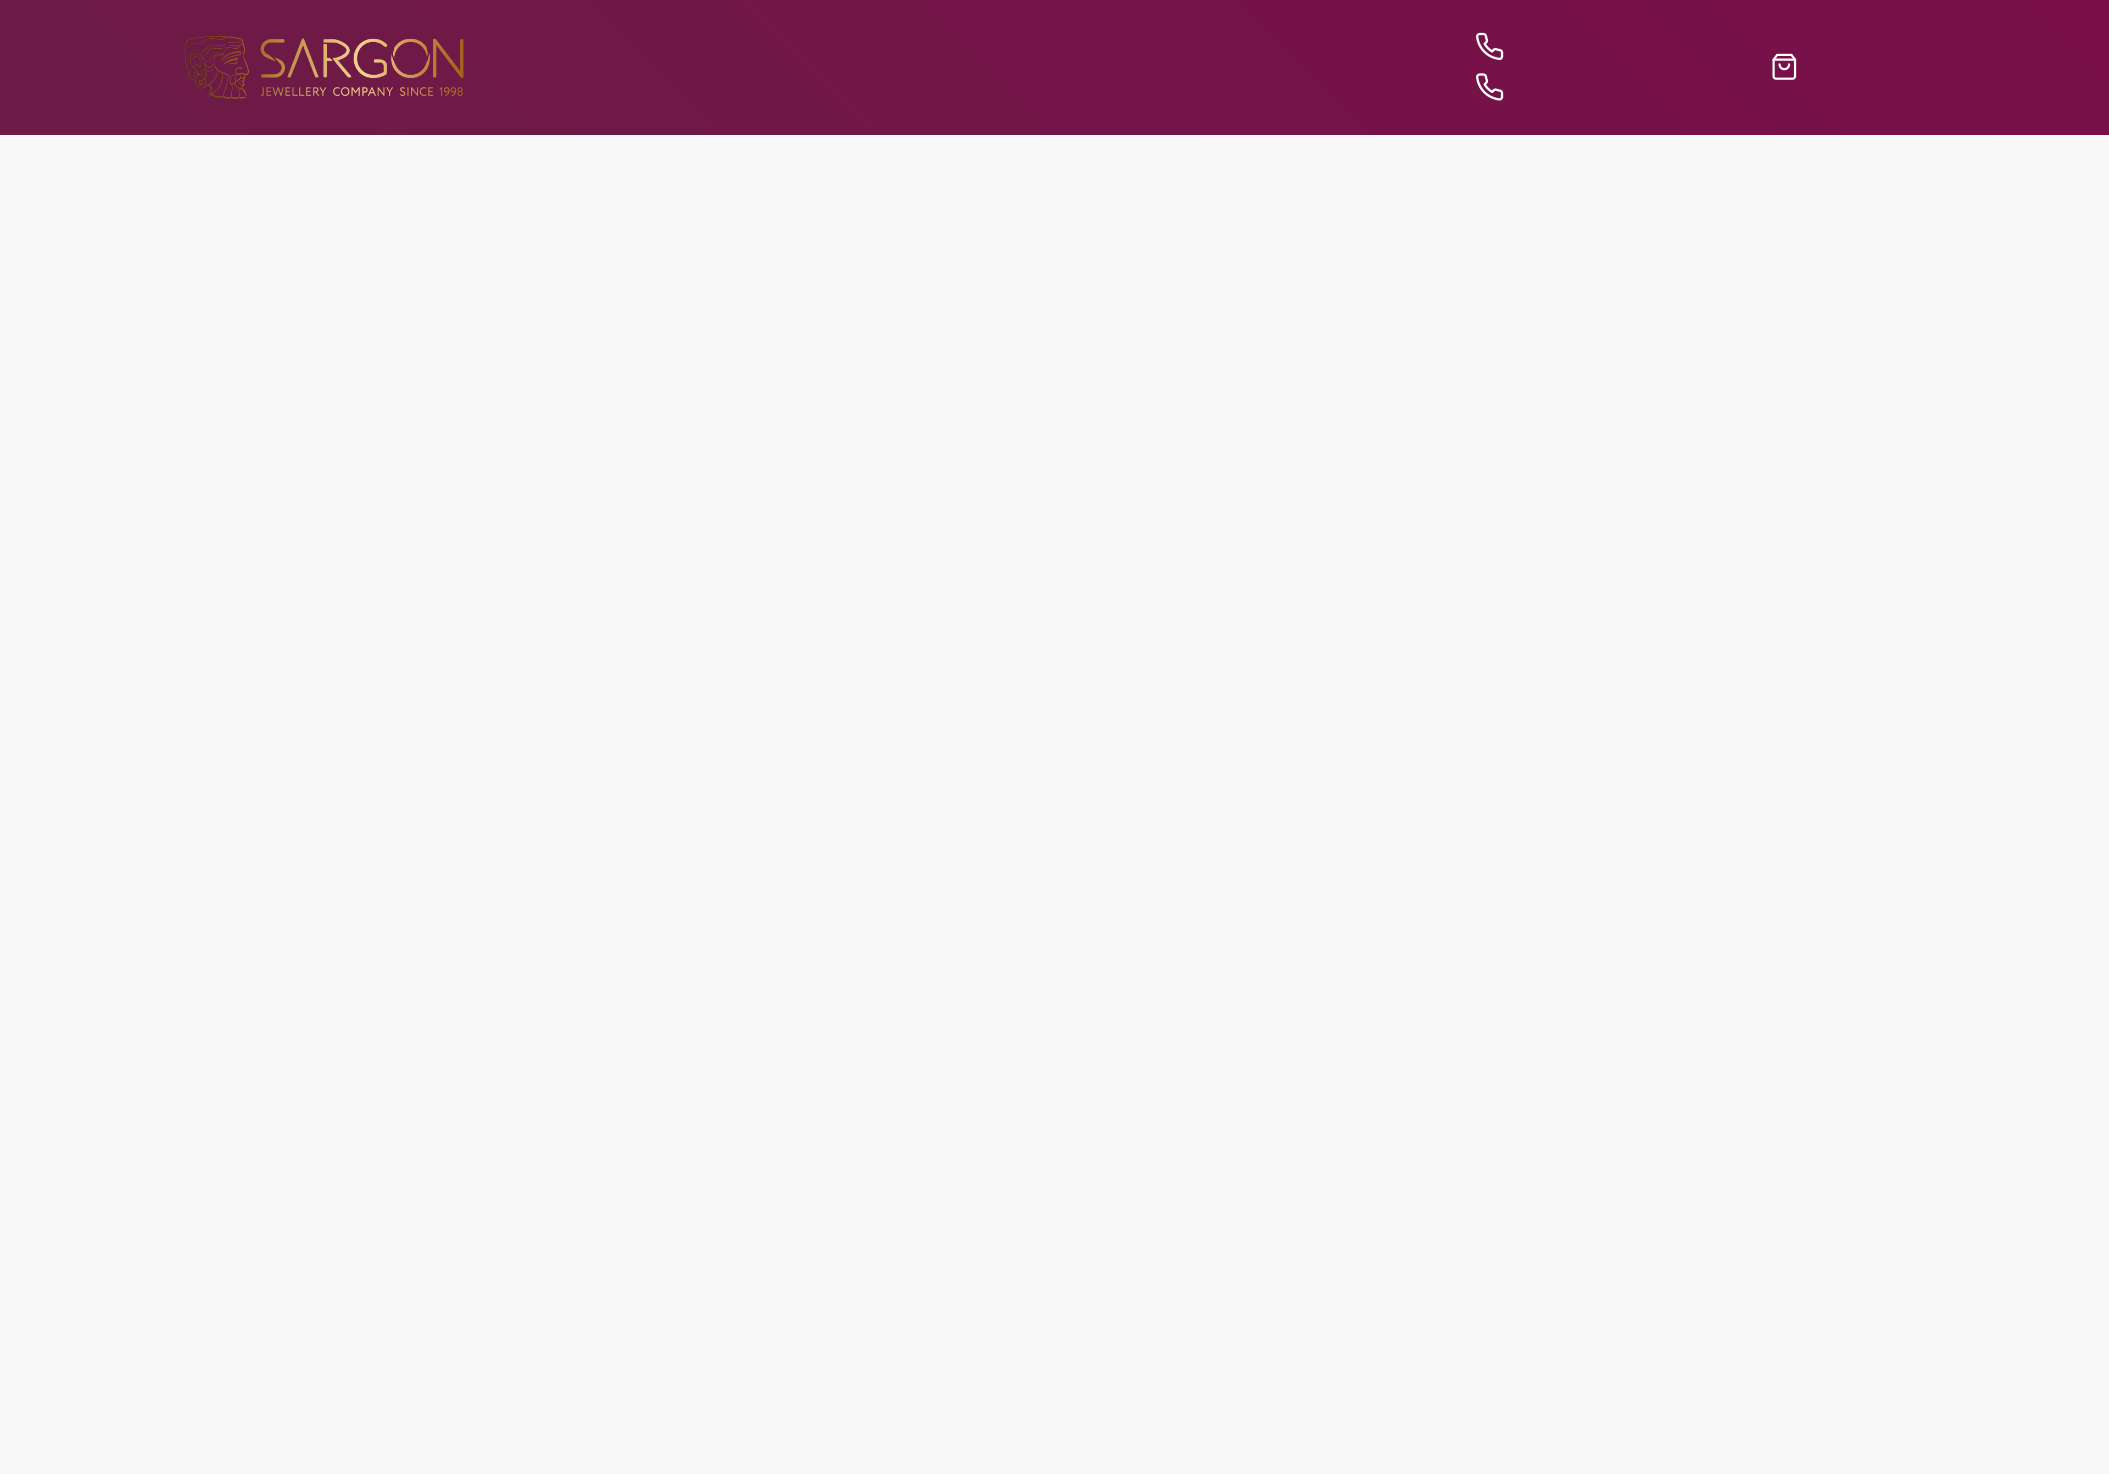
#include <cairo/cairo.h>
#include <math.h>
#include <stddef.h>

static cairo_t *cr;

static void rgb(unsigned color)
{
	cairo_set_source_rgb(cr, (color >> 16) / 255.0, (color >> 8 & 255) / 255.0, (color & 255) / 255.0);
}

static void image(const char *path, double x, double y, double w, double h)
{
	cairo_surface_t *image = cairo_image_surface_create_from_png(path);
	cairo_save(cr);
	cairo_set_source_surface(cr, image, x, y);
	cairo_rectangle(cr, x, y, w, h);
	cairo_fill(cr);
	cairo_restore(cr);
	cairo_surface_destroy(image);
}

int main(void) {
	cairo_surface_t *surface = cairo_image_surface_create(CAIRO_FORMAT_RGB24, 2109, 1474);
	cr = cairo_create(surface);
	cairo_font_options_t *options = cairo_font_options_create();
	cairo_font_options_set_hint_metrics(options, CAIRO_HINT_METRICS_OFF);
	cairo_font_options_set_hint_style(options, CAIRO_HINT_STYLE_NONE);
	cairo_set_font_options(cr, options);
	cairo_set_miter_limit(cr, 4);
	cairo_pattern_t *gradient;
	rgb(0xf8f8f8);
	cairo_paint(cr);
	gradient = cairo_pattern_create_linear(494, 629, 1616, -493);
	cairo_pattern_add_color_stop_rgba(gradient, 0, 0.424, 0.11, 0.278, 1);
	cairo_pattern_add_color_stop_rgba(gradient, 1, 0.478, 0.055, 0.286, 1);
	cairo_pattern_add_color_stop_rgba(gradient, 1, 0.839, 0.722, 0.788, 1);
	cairo_pattern_add_color_stop_rgba(gradient, 1, 0.973, 0.973, 0.973, 1);
	cairo_set_source(cr, gradient);
	cairo_pattern_destroy(gradient);
	cairo_rectangle(cr, 0, 0, 2109, 135);
	cairo_fill(cr);
	image("img/1.png", 184, 36, 280, 63);
	image("img/2.png", 1476, 32, 28, 29);
	image("img/3.png", 1772, 53, 25, 27);
	image("img/4.png", 1476, 73, 28, 28);
	cairo_surface_write_to_png(surface, "page.png");
	cairo_font_options_destroy(options);
	cairo_destroy(cr);
	cairo_surface_destroy(surface);
	return 0;
}
